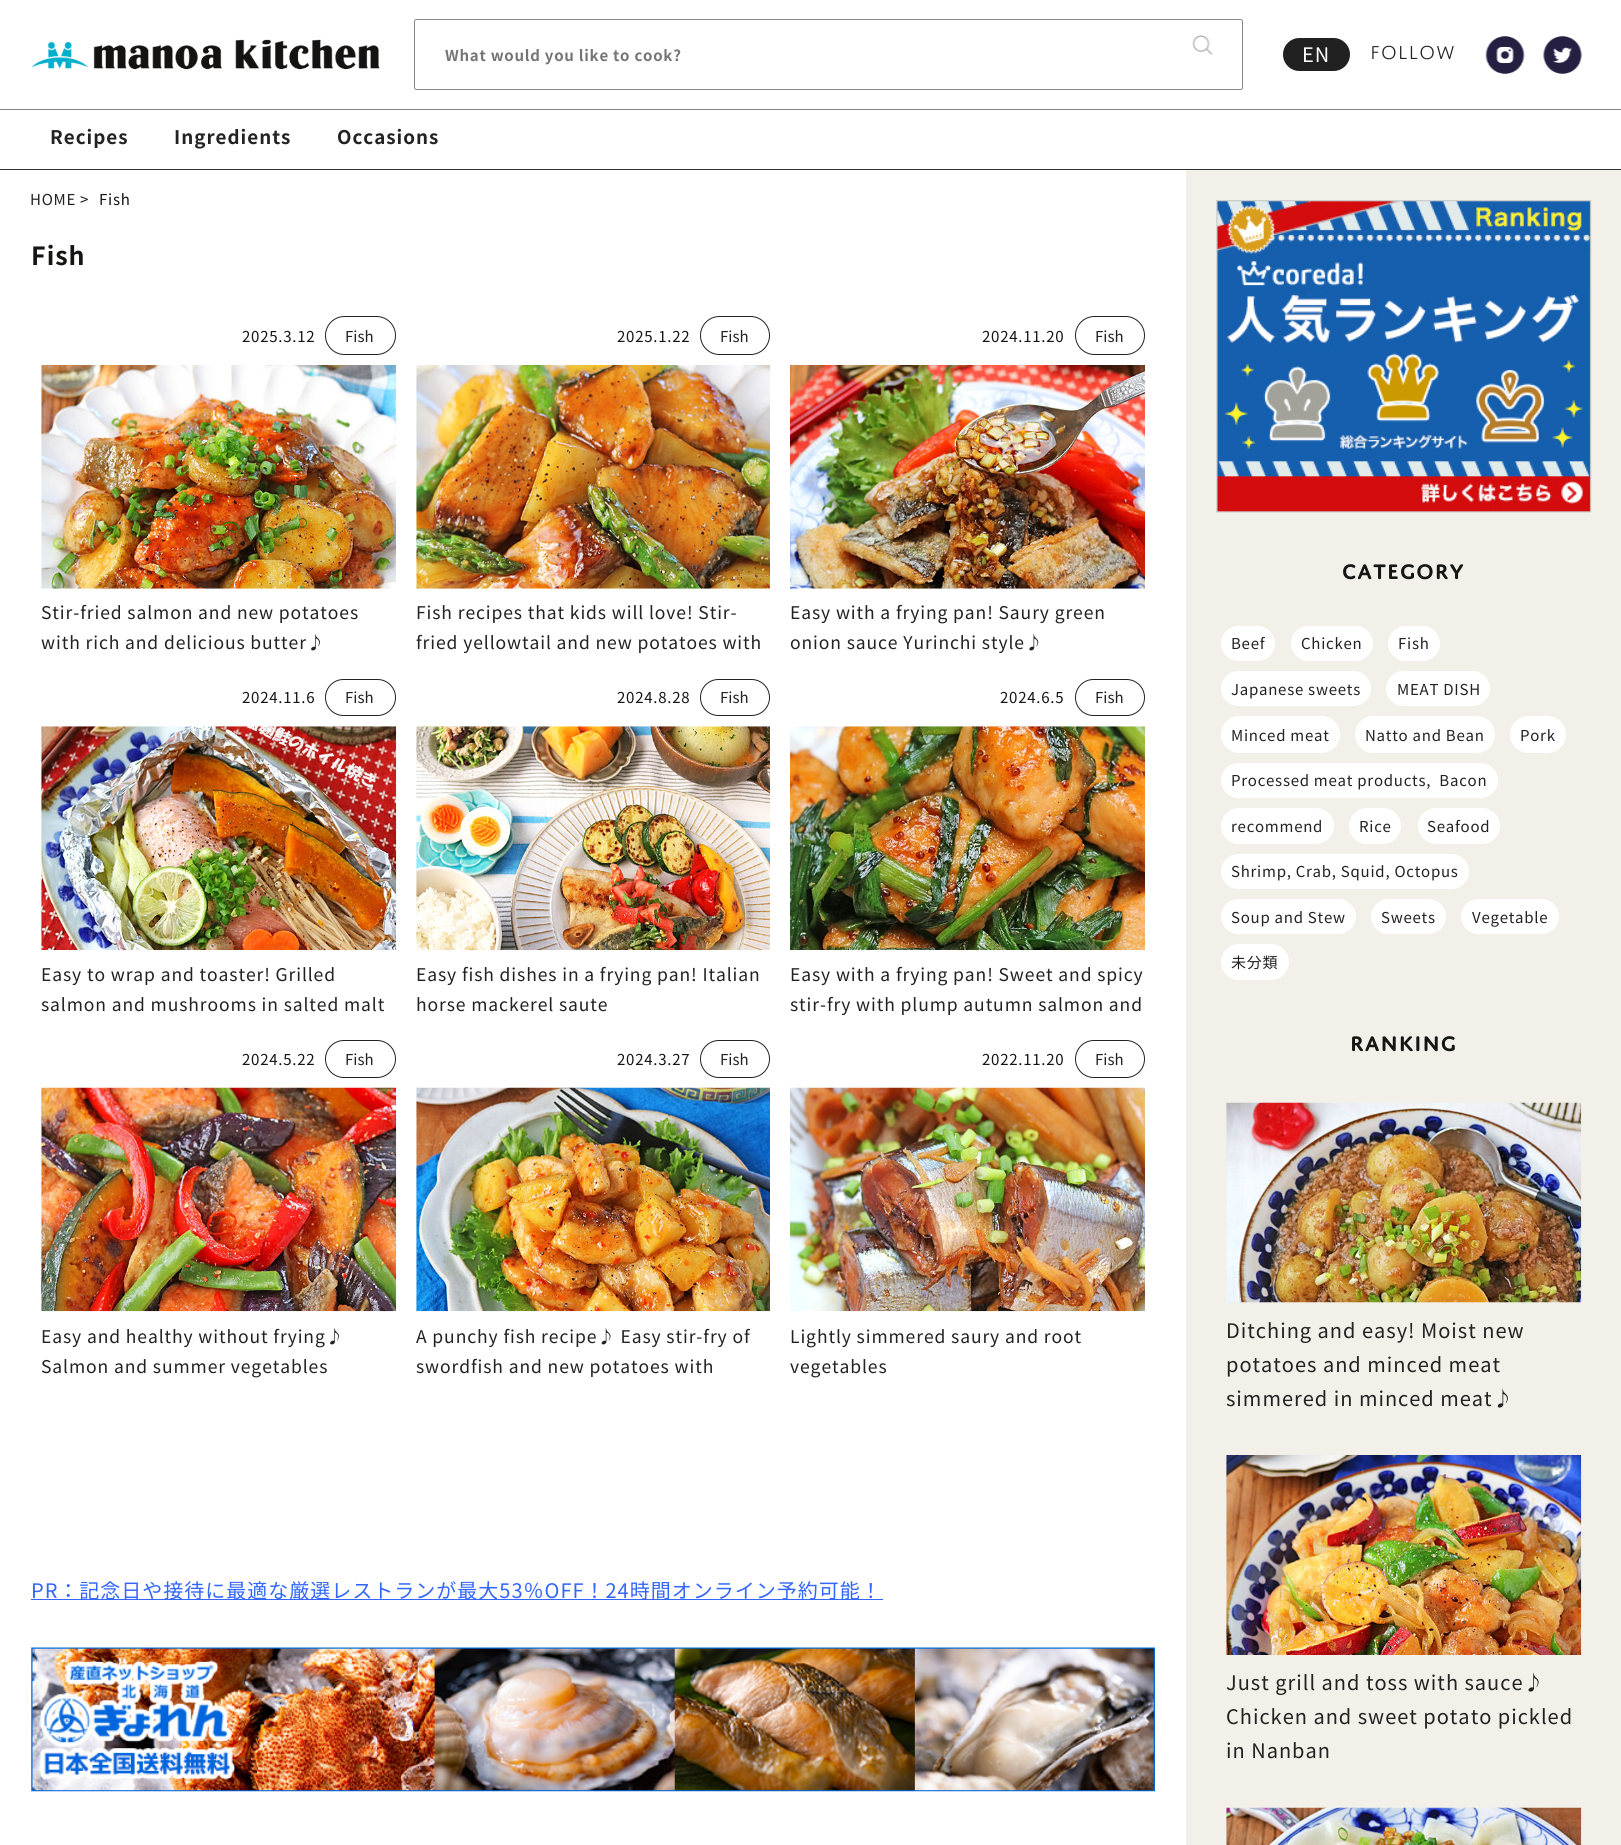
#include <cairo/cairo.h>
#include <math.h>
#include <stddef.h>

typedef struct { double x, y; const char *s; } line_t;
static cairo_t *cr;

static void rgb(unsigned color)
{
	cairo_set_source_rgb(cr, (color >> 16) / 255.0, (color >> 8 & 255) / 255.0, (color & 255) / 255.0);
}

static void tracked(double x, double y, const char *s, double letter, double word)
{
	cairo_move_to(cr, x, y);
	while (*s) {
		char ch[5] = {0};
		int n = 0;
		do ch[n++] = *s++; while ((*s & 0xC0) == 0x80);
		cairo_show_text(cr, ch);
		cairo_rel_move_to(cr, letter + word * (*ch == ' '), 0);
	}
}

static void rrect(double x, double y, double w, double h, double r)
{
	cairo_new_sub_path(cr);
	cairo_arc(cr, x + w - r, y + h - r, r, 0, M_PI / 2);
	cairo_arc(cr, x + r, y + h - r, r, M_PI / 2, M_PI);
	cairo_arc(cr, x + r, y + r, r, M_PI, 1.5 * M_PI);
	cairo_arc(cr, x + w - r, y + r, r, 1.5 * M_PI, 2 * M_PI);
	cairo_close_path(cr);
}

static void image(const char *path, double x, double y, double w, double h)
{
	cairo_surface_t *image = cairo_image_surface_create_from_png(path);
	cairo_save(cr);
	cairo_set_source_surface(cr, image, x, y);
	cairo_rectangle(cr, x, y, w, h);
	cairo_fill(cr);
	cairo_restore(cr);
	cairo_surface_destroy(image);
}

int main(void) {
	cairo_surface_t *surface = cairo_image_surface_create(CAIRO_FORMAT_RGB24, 1621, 1845);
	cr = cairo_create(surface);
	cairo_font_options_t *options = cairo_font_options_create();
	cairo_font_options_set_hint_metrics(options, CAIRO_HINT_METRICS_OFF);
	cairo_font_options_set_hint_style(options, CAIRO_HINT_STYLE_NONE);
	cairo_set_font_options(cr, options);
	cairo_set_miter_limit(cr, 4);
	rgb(0xffffff);
	cairo_paint(cr);
	rgb(0x808080);
	cairo_rectangle(cr, 0, 109, 1621, 1);
	cairo_fill(cr);
	image("img/1.png", 32, 39, 348, 31);
	rrect(414.5, 19.5, 828, 70, 2);
	rgb(0x898989);
	cairo_set_line_width(cr, 1);
	cairo_stroke(cr);
	image("img/2.png", 1192, 35, 21, 20);
	rgb(0x212121);
	rrect(1283, 38, 67, 33, 16.5);
	cairo_fill(cr);
	image("img/3.png", 1485, 36, 40, 38);
	image("img/4.png", 1543, 36, 39, 38);
	rgb(0x323232);
	cairo_rectangle(cr, 0, 169, 1621, 1);
	cairo_fill(cr);
	rrect(325.5, 316.5, 70, 38, 19);
	rgb(0x222222);
	cairo_stroke(cr);
	image("img/5.png", 41, 365, 356, 224);
	rrect(700.5, 316.5, 69, 38, 19);
	cairo_stroke(cr);
	image("img/6.png", 416, 365, 354, 224);
	rrect(1075.5, 316.5, 69, 38, 19);
	cairo_stroke(cr);
	image("img/7.png", 790, 365, 355, 224);
	rrect(325.5, 679.5, 70, 36, 18);
	cairo_stroke(cr);
	image("img/8.png", 41, 726, 356, 224);
	rrect(700.5, 679.5, 69, 36, 18);
	cairo_stroke(cr);
	image("img/9.png", 416, 726, 354, 224);
	rrect(1075.5, 679.5, 69, 36, 18);
	cairo_stroke(cr);
	image("img/10.png", 790, 726, 355, 224);
	rrect(325.5, 1040.5, 70, 37, 18.5);
	cairo_stroke(cr);
	image("img/11.png", 41, 1087, 356, 225);
	rrect(700.5, 1040.5, 69, 37, 18.5);
	cairo_stroke(cr);
	image("img/12.png", 416, 1087, 354, 225);
	rrect(1075.5, 1040.5, 69, 37, 18.5);
	cairo_stroke(cr);
	image("img/13.png", 790, 1087, 355, 225);
	rgb(0x3366ff);
	cairo_rectangle(cr, 31, 1599, 852, 1);
	cairo_fill(cr);
	image("img/14.png", 31, 1647, 1124, 145);
	rgb(0xf2f0e8);
	cairo_rectangle(cr, 1186, 170, 435, 1675);
	cairo_fill(cr);
	image("img/15.png", 1216, 200, 376, 313);
	rgb(0xffffff);
	rrect(1221, 626, 54, 35, 17.5);
	cairo_fill(cr);
	rrect(1291, 626, 82, 35, 17.5);
	cairo_fill(cr);
	rrect(1388, 626, 52, 35, 17.5);
	cairo_fill(cr);
	rrect(1221, 671, 150, 35, 17.5);
	cairo_fill(cr);
	rrect(1386, 671, 104, 35, 17.5);
	cairo_fill(cr);
	rrect(1221, 716, 119, 37, 18.5);
	cairo_fill(cr);
	rrect(1355, 716, 140, 37, 18.5);
	cairo_fill(cr);
	rrect(1510, 716, 56, 37, 18.5);
	cairo_fill(cr);
	rrect(1221, 763, 277, 35, 17.5);
	cairo_fill(cr);
	rrect(1221, 808, 113, 36, 18);
	cairo_fill(cr);
	rrect(1349, 808, 52, 36, 18);
	cairo_fill(cr);
	rrect(1418, 808, 82, 36, 18);
	cairo_fill(cr);
	rrect(1221, 854, 248, 35, 17.5);
	cairo_fill(cr);
	rrect(1221, 899, 135, 35, 17.5);
	cairo_fill(cr);
	rrect(1371, 899, 75, 35, 17.5);
	cairo_fill(cr);
	rrect(1461, 899, 98, 35, 17.5);
	cairo_fill(cr);
	rrect(1221, 944, 68, 36, 18);
	cairo_fill(cr);
	image("img/16.png", 1226, 1102, 356, 201);
	image("img/17.png", 1226, 1455, 356, 200);
	image("img/18.png", 1226, 1807, 356, 38);
	cairo_select_font_face(cr, "Noto Sans JP", CAIRO_FONT_SLANT_NORMAL, CAIRO_FONT_WEIGHT_BOLD);
	cairo_set_font_size(cr, 15);
	rgb(0x757575);
	tracked(445, 61, "What would you like to cook?", 0.75, 0);
	cairo_select_font_face(cr, "Noto Sans JP", CAIRO_FONT_SLANT_NORMAL, CAIRO_FONT_WEIGHT_NORMAL);
	cairo_set_font_size(cr, 20);
	rgb(0xffffff);
	tracked(1302, 62, "EN", 1, 0);
	cairo_select_font_face(cr, "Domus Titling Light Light", CAIRO_FONT_SLANT_NORMAL, CAIRO_FONT_WEIGHT_NORMAL);
	rgb(0x222222);
	tracked(1370, 59, "FOLLOW", 1, 0);
	cairo_select_font_face(cr, "Noto Sans JP", CAIRO_FONT_SLANT_NORMAL, CAIRO_FONT_WEIGHT_BOLD);
	cairo_set_font_size(cr, 18.75);
	{
		static const line_t items[] = {
			{50, 144, "Recipes"},
			{174, 144, "Ingredients"},
			{337, 144, "Occasions"},
		};
		for (size_t i = 0; i < sizeof items / sizeof *items; i++) {
			tracked(items[i].x, items[i].y, items[i].s, 1, 0);
		}
	}
	cairo_select_font_face(cr, "Noto Sans JP", CAIRO_FONT_SLANT_NORMAL, CAIRO_FONT_WEIGHT_NORMAL);
	cairo_set_font_size(cr, 15);
	tracked(30, 205, "HOME", 0.75, 0);
	rgb(0x151514);
	tracked(80, 205, ">", 0.75, 0);
	tracked(99, 205, "Fish", 0.75, 0);
	cairo_select_font_face(cr, "Noto Sans JP", CAIRO_FONT_SLANT_NORMAL, CAIRO_FONT_WEIGHT_BOLD);
	cairo_set_font_size(cr, 25);
	tracked(31, 265, "Fish", 1, 0);
	cairo_select_font_face(cr, "Noto Sans JP", CAIRO_FONT_SLANT_NORMAL, CAIRO_FONT_WEIGHT_NORMAL);
	cairo_set_font_size(cr, 15);
	tracked(242, 342, "2025.3.12", 0.75, 0);
	rgb(0x222222);
	cairo_move_to(cr, 345, 342);
	cairo_show_text(cr, "Fish");
	cairo_set_font_size(cr, 17.5);
	tracked(41, 619, "Stir-fried salmon and new potatoes", 0.9, 0);
	tracked(41, 649, "with rich and delicious butter♪", 0.9, 0);
	cairo_set_font_size(cr, 15);
	rgb(0x151514);
	tracked(617, 342, "2025.1.22", 0.75, 0);
	rgb(0x222222);
	cairo_move_to(cr, 720, 342);
	cairo_show_text(cr, "Fish");
	cairo_set_font_size(cr, 17.5);
	tracked(416, 619, "Fish recipes that kids will love! Stir-", 0.9, 0);
	tracked(416, 649, "fried yellowtail and new potatoes with", 0.9, 0);
	cairo_set_font_size(cr, 15);
	rgb(0x151514);
	tracked(982, 342, "2024.11.20", 0.75, 0);
	rgb(0x222222);
	cairo_move_to(cr, 1095, 342);
	cairo_show_text(cr, "Fish");
	cairo_set_font_size(cr, 17.5);
	tracked(790, 619, "Easy with a frying pan! Saury green", 0.9, 0);
	tracked(790, 649, "onion sauce Yurinchi style♪", 0.9, 0);
	cairo_set_font_size(cr, 15);
	rgb(0x151514);
	tracked(242, 703, "2024.11.6", 0.75, 0);
	rgb(0x222222);
	cairo_move_to(cr, 345, 703);
	cairo_show_text(cr, "Fish");
	cairo_set_font_size(cr, 17.5);
	tracked(41, 981, "Easy to wrap and toaster! Grilled", 0.9, 0);
	tracked(41, 1011, "salmon and mushrooms in salted malt", 0.9, 0);
	cairo_set_font_size(cr, 15);
	rgb(0x151514);
	tracked(617, 703, "2024.8.28", 0.75, 0);
	rgb(0x222222);
	cairo_move_to(cr, 720, 703);
	cairo_show_text(cr, "Fish");
	cairo_set_font_size(cr, 17.5);
	tracked(416, 981, "Easy fish dishes in a frying pan! Italian", 0.9, 0);
	tracked(416, 1011, "horse mackerel saute", 0.9, 0);
	cairo_set_font_size(cr, 15);
	rgb(0x151514);
	tracked(1000, 703, "2024.6.5", 0.75, 0);
	rgb(0x222222);
	cairo_move_to(cr, 1095, 703);
	cairo_show_text(cr, "Fish");
	cairo_set_font_size(cr, 17.5);
	tracked(790, 981, "Easy with a frying pan! Sweet and spicy", 0.9, 0);
	tracked(790, 1011, "stir-fry with plump autumn salmon and", 0.9, 0);
	cairo_set_font_size(cr, 15);
	rgb(0x151514);
	tracked(242, 1065, "2024.5.22", 0.75, 0);
	rgb(0x222222);
	cairo_move_to(cr, 345, 1065);
	cairo_show_text(cr, "Fish");
	cairo_set_font_size(cr, 17.5);
	tracked(41, 1343, "Easy and healthy without frying♪", 0.9, 0);
	tracked(41, 1373, "Salmon and summer vegetables", 0.9, 0);
	cairo_set_font_size(cr, 15);
	rgb(0x151514);
	tracked(617, 1065, "2024.3.27", 0.75, 0);
	rgb(0x222222);
	cairo_move_to(cr, 720, 1065);
	cairo_show_text(cr, "Fish");
	cairo_set_font_size(cr, 17.5);
	tracked(416, 1343, "A punchy fish recipe♪ Easy stir-fry of", 0.9, 0);
	tracked(416, 1373, "swordfish and new potatoes with", 0.9, 0);
	cairo_set_font_size(cr, 15);
	rgb(0x151514);
	tracked(982, 1065, "2022.11.20", 0.75, 0);
	rgb(0x222222);
	cairo_move_to(cr, 1095, 1065);
	cairo_show_text(cr, "Fish");
	cairo_set_font_size(cr, 17.5);
	tracked(790, 1343, "Lightly simmered saury and root", 0.9, 0);
	tracked(790, 1373, "vegetables", 0.9, 0);
	cairo_set_font_size(cr, 20);
	rgb(0x3366ff);
	tracked(31, 1598, "PR：記念日や接待に最適な厳選レストランが最大53％OFF！24時間オンライン予約可能！", 1, 0);
	cairo_select_font_face(cr, "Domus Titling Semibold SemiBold", CAIRO_FONT_SLANT_NORMAL, CAIRO_FONT_WEIGHT_NORMAL);
	cairo_set_font_size(cr, 22.5);
	rgb(0x151514);
	tracked(1342, 579, "CATEGORY", 1, 0);
	cairo_select_font_face(cr, "Noto Sans JP", CAIRO_FONT_SLANT_NORMAL, CAIRO_FONT_WEIGHT_NORMAL);
	cairo_set_font_size(cr, 15);
	rgb(0x222222);
	{
		static const line_t items[] = {
			{1231, 649, "Beef"},
			{1301, 649, "Chicken"},
			{1398, 649, "Fish"},
			{1231, 695, "Japanese sweets"},
			{1397, 695, "MEAT DISH"},
			{1231, 741, "Minced meat"},
			{1365, 741, "Natto and Bean"},
			{1520, 741, "Pork"},
			{1231, 786, "Processed meat products,  Bacon"},
			{1231, 832, "recommend"},
			{1359, 832, "Rice"},
			{1427, 832, "Seafood"},
			{1231, 877, "Shrimp, Crab, Squid, Octopus"},
			{1231, 923, "Soup and Stew"},
			{1381, 923, "Sweets"},
			{1472, 923, "Vegetable"},
			{1231, 968, "未分類"},
		};
		for (size_t i = 0; i < sizeof items / sizeof *items; i++) {
			tracked(items[i].x, items[i].y, items[i].s, 0.75, 0);
		}
	}
	cairo_select_font_face(cr, "Domus Titling Semibold SemiBold", CAIRO_FONT_SLANT_NORMAL, CAIRO_FONT_WEIGHT_NORMAL);
	cairo_set_font_size(cr, 22.5);
	rgb(0x151514);
	tracked(1350, 1051, "RANKING", 1, 0);
	cairo_select_font_face(cr, "Noto Sans JP", CAIRO_FONT_SLANT_NORMAL, CAIRO_FONT_WEIGHT_NORMAL);
	cairo_set_font_size(cr, 20);
	rgb(0x222222);
	{
		static const line_t items[] = {
			{1226, 1338, "Ditching and easy! Moist new"},
			{1226, 1372, "potatoes and minced meat"},
			{1226, 1406, "simmered in minced meat♪"},
			{1226, 1690, "Just grill and toss with sauce♪"},
			{1226, 1724, "Chicken and sweet potato pickled"},
			{1226, 1758, "in Nanban"},
		};
		for (size_t i = 0; i < sizeof items / sizeof *items; i++) {
			tracked(items[i].x, items[i].y, items[i].s, 1, 0);
		}
	}
	cairo_surface_write_to_png(surface, "page.png");
	cairo_font_options_destroy(options);
	cairo_destroy(cr);
	cairo_surface_destroy(surface);
	return 0;
}
